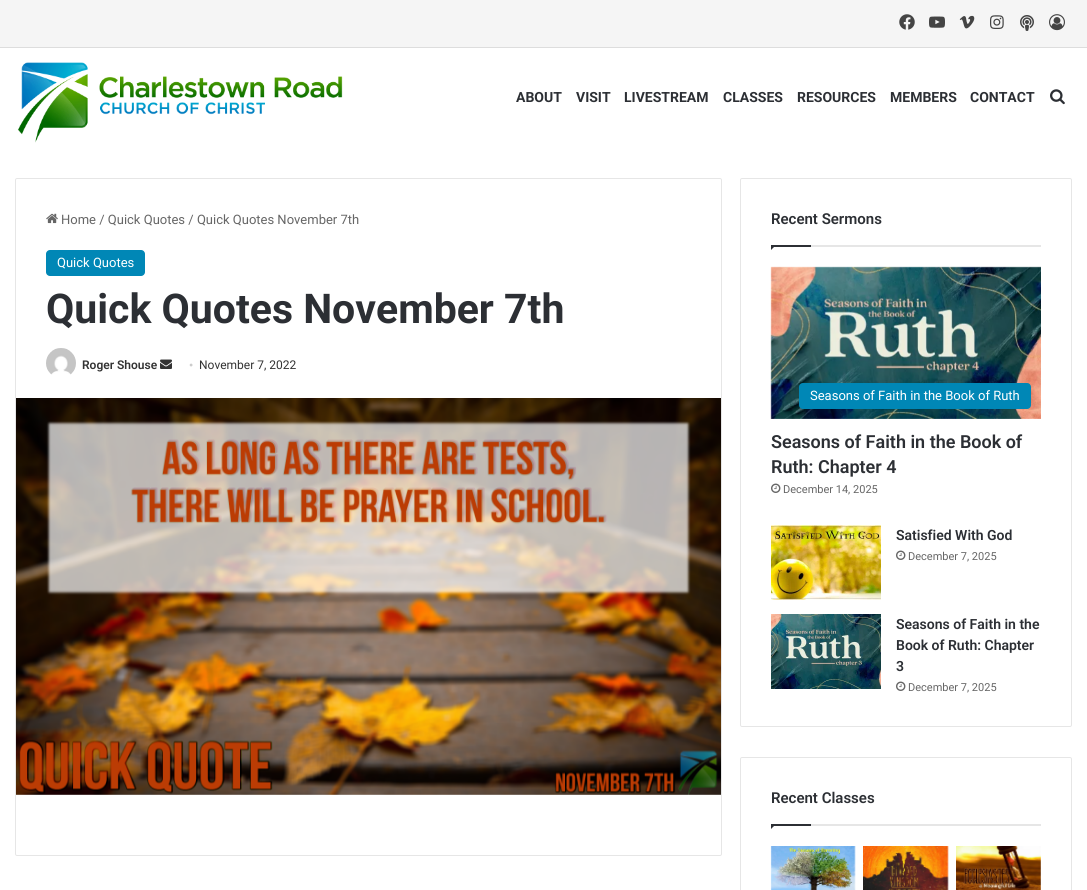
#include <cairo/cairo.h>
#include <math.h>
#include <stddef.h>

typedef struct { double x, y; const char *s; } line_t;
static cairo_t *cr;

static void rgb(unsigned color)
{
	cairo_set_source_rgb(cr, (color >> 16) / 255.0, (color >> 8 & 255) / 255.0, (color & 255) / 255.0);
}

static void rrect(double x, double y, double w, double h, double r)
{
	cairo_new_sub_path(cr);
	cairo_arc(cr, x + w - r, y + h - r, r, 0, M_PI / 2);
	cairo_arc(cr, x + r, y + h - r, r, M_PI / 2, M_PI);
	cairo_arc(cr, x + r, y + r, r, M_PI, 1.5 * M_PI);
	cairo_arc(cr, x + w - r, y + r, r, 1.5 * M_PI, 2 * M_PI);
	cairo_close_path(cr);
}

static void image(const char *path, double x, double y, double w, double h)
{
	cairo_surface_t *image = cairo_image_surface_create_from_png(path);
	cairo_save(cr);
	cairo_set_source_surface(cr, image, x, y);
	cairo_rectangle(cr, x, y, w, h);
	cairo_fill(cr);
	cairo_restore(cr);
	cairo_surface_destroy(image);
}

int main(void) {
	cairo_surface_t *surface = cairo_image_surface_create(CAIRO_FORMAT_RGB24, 1087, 890);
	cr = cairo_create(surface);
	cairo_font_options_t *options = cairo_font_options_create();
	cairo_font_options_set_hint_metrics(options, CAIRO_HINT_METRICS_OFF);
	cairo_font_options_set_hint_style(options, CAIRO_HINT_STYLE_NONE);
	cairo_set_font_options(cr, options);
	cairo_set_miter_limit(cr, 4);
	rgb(0xffffff);
	cairo_paint(cr);
	rgb(0xf5f5f5);
	cairo_rectangle(cr, 0, 0, 1087, 47);
	cairo_fill(cr);
	rgb(0xdddddd);
	cairo_rectangle(cr, 0, 47, 1087, 1);
	cairo_fill(cr);
	image("img/1.png", 899, 14, 16, 16);
	image("img/2.png", 929, 16, 16, 12);
	image("img/3.png", 959, 15, 16, 14);
	image("img/4.png", 990, 15, 14, 14);
	image("img/5.png", 1020, 15, 14, 16);
	image("img/6.png", 1049, 14, 16, 17);
	image("img/7.png", 17, 62, 326, 81);
	image("img/8.png", 1050, 89, 15, 16);
	rrect(15.5, 178.5, 706, 677, 1.5);
	rgb(0xe6e6e6);
	cairo_set_line_width(cr, 1);
	cairo_stroke(cr);
	image("img/9.png", 46, 213, 12, 11);
	rgb(0x0087b6);
	rrect(46, 250, 99, 26, 4);
	cairo_fill(cr);
	image("img/10.png", 46, 348, 30, 27);
	image("img/11.png", 160, 359, 12, 10);
	image("img/12.png", 16, 398, 705, 397);
	rrect(740.5, 178.5, 331, 548, 1.5);
	rgb(0xe6e6e6);
	cairo_stroke(cr);
	cairo_rectangle(cr, 811, 245, 230, 2);
	cairo_fill(cr);
	rgb(0x2c2f34);
	cairo_new_path(cr);
	cairo_move_to(cr, 771, 245);
	cairo_line_to(cr, 776, 245);
	cairo_line_to(cr, 771, 250);
	cairo_close_path(cr);
	cairo_fill(cr);
	cairo_rectangle(cr, 771, 245, 40, 2);
	cairo_fill(cr);
	image("img/13.png", 770, 266, 271, 153);
	rgb(0x0087b6);
	rrect(799, 383, 232, 26, 4);
	cairo_fill(cr);
	image("img/14.png", 771, 483, 10, 10);
	image("img/15.png", 771, 525, 110, 75);
	image("img/14.png", 896, 550, 10, 10);
	image("img/16.png", 771, 614, 110, 75);
	image("img/14.png", 896, 681, 10, 10);
	rrect(740.5, 757.5, 331, 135, 1.5);
	rgb(0xe6e6e6);
	cairo_stroke(cr);
	cairo_rectangle(cr, 811, 824, 230, 2);
	cairo_fill(cr);
	rgb(0x2c2f34);
	cairo_new_path(cr);
	cairo_move_to(cr, 771, 824);
	cairo_line_to(cr, 776, 824);
	cairo_line_to(cr, 771, 829);
	cairo_close_path(cr);
	cairo_fill(cr);
	cairo_rectangle(cr, 771, 824, 40, 2);
	cairo_fill(cr);
	image("img/17.png", 770, 846, 86, 44);
	image("img/18.png", 863, 846, 86, 44);
	image("img/19.png", 956, 846, 85, 44);
	cairo_select_font_face(cr, "Roboto", CAIRO_FONT_SLANT_NORMAL, CAIRO_FONT_WEIGHT_BOLD);
	cairo_set_font_size(cr, 14);
	{
		static const line_t items[] = {
			{516, 102, "ABOUT"},
			{576, 102, "VISIT"},
			{624, 102, "LIVESTREAM"},
			{723, 102, "CLASSES"},
			{797, 102, "RESOURCES"},
			{890, 102, "MEMBERS"},
			{970, 102, "CONTACT"},
		};
		for (size_t i = 0; i < sizeof items / sizeof *items; i++) {
			cairo_move_to(cr, items[i].x, items[i].y);
			cairo_show_text(cr, items[i].s);
		}
	}
	cairo_select_font_face(cr, "Roboto", CAIRO_FONT_SLANT_NORMAL, CAIRO_FONT_WEIGHT_NORMAL);
	cairo_set_font_size(cr, 13);
	rgb(0x666666);
	cairo_move_to(cr, 61, 224);
	cairo_show_text(cr, "Home / Quick Quotes / Quick Quotes November 7th");
	rgb(0xffffff);
	cairo_move_to(cr, 57, 267);
	cairo_show_text(cr, "Quick Quotes");
	cairo_select_font_face(cr, "Roboto", CAIRO_FONT_SLANT_NORMAL, CAIRO_FONT_WEIGHT_BOLD);
	cairo_set_font_size(cr, 41);
	rgb(0x2c2f34);
	cairo_move_to(cr, 46, 323);
	cairo_show_text(cr, "Quick Quotes November 7th");
	cairo_select_font_face(cr, "Roboto SemiBold", CAIRO_FONT_SLANT_NORMAL, CAIRO_FONT_WEIGHT_NORMAL);
	cairo_set_font_size(cr, 12);
	rgb(0x333333);
	cairo_move_to(cr, 82, 369);
	cairo_show_text(cr, "Roger Shouse");
	cairo_select_font_face(cr, "Liberation Serif", CAIRO_FONT_SLANT_NORMAL, CAIRO_FONT_WEIGHT_NORMAL);
	rgb(0xcccccc);
	cairo_move_to(cr, 189, 369);
	cairo_show_text(cr, "•");
	cairo_select_font_face(cr, "Roboto", CAIRO_FONT_SLANT_NORMAL, CAIRO_FONT_WEIGHT_NORMAL);
	rgb(0x333333);
	cairo_move_to(cr, 199, 369);
	cairo_show_text(cr, "November 7, 2022");
	cairo_select_font_face(cr, "Roboto SemiBold", CAIRO_FONT_SLANT_NORMAL, CAIRO_FONT_WEIGHT_NORMAL);
	cairo_set_font_size(cr, 15);
	rgb(0x2c2f34);
	cairo_move_to(cr, 771, 224);
	cairo_show_text(cr, "Recent Sermons");
	cairo_select_font_face(cr, "Roboto", CAIRO_FONT_SLANT_NORMAL, CAIRO_FONT_WEIGHT_NORMAL);
	cairo_set_font_size(cr, 13);
	rgb(0xffffff);
	cairo_move_to(cr, 810, 400);
	cairo_show_text(cr, "Seasons of Faith in the Book of Ruth");
	cairo_select_font_face(cr, "Roboto SemiBold", CAIRO_FONT_SLANT_NORMAL, CAIRO_FONT_WEIGHT_NORMAL);
	cairo_set_font_size(cr, 18);
	rgb(0x2c2f34);
	cairo_move_to(cr, 771, 448);
	cairo_show_text(cr, "Seasons of Faith in the Book of");
	cairo_move_to(cr, 771, 473);
	cairo_show_text(cr, "Ruth: Chapter 4");
	cairo_select_font_face(cr, "Roboto", CAIRO_FONT_SLANT_NORMAL, CAIRO_FONT_WEIGHT_NORMAL);
	cairo_set_font_size(cr, 11);
	rgb(0x666666);
	cairo_move_to(cr, 783, 493);
	cairo_show_text(cr, "December 14, 2025");
	cairo_select_font_face(cr, "Roboto SemiBold", CAIRO_FONT_SLANT_NORMAL, CAIRO_FONT_WEIGHT_NORMAL);
	cairo_set_font_size(cr, 14);
	rgb(0x2c2f34);
	cairo_move_to(cr, 896, 540);
	cairo_show_text(cr, "Satisfied With God");
	cairo_select_font_face(cr, "Roboto", CAIRO_FONT_SLANT_NORMAL, CAIRO_FONT_WEIGHT_NORMAL);
	cairo_set_font_size(cr, 11);
	rgb(0x666666);
	cairo_move_to(cr, 908, 560);
	cairo_show_text(cr, "December 7, 2025");
	cairo_select_font_face(cr, "Roboto SemiBold", CAIRO_FONT_SLANT_NORMAL, CAIRO_FONT_WEIGHT_NORMAL);
	cairo_set_font_size(cr, 14);
	rgb(0x2c2f34);
	{
		static const line_t items[] = {
			{896, 629, "Seasons of Faith in the"},
			{896, 650, "Book of Ruth: Chapter"},
			{896, 671, "3"},
		};
		for (size_t i = 0; i < sizeof items / sizeof *items; i++) {
			cairo_move_to(cr, items[i].x, items[i].y);
			cairo_show_text(cr, items[i].s);
		}
	}
	cairo_select_font_face(cr, "Roboto", CAIRO_FONT_SLANT_NORMAL, CAIRO_FONT_WEIGHT_NORMAL);
	cairo_set_font_size(cr, 11);
	rgb(0x666666);
	cairo_move_to(cr, 908, 691);
	cairo_show_text(cr, "December 7, 2025");
	cairo_select_font_face(cr, "Roboto SemiBold", CAIRO_FONT_SLANT_NORMAL, CAIRO_FONT_WEIGHT_NORMAL);
	cairo_set_font_size(cr, 15);
	rgb(0x2c2f34);
	cairo_move_to(cr, 771, 803);
	cairo_show_text(cr, "Recent Classes");
	cairo_surface_write_to_png(surface, "page.png");
	cairo_font_options_destroy(options);
	cairo_destroy(cr);
	cairo_surface_destroy(surface);
	return 0;
}
